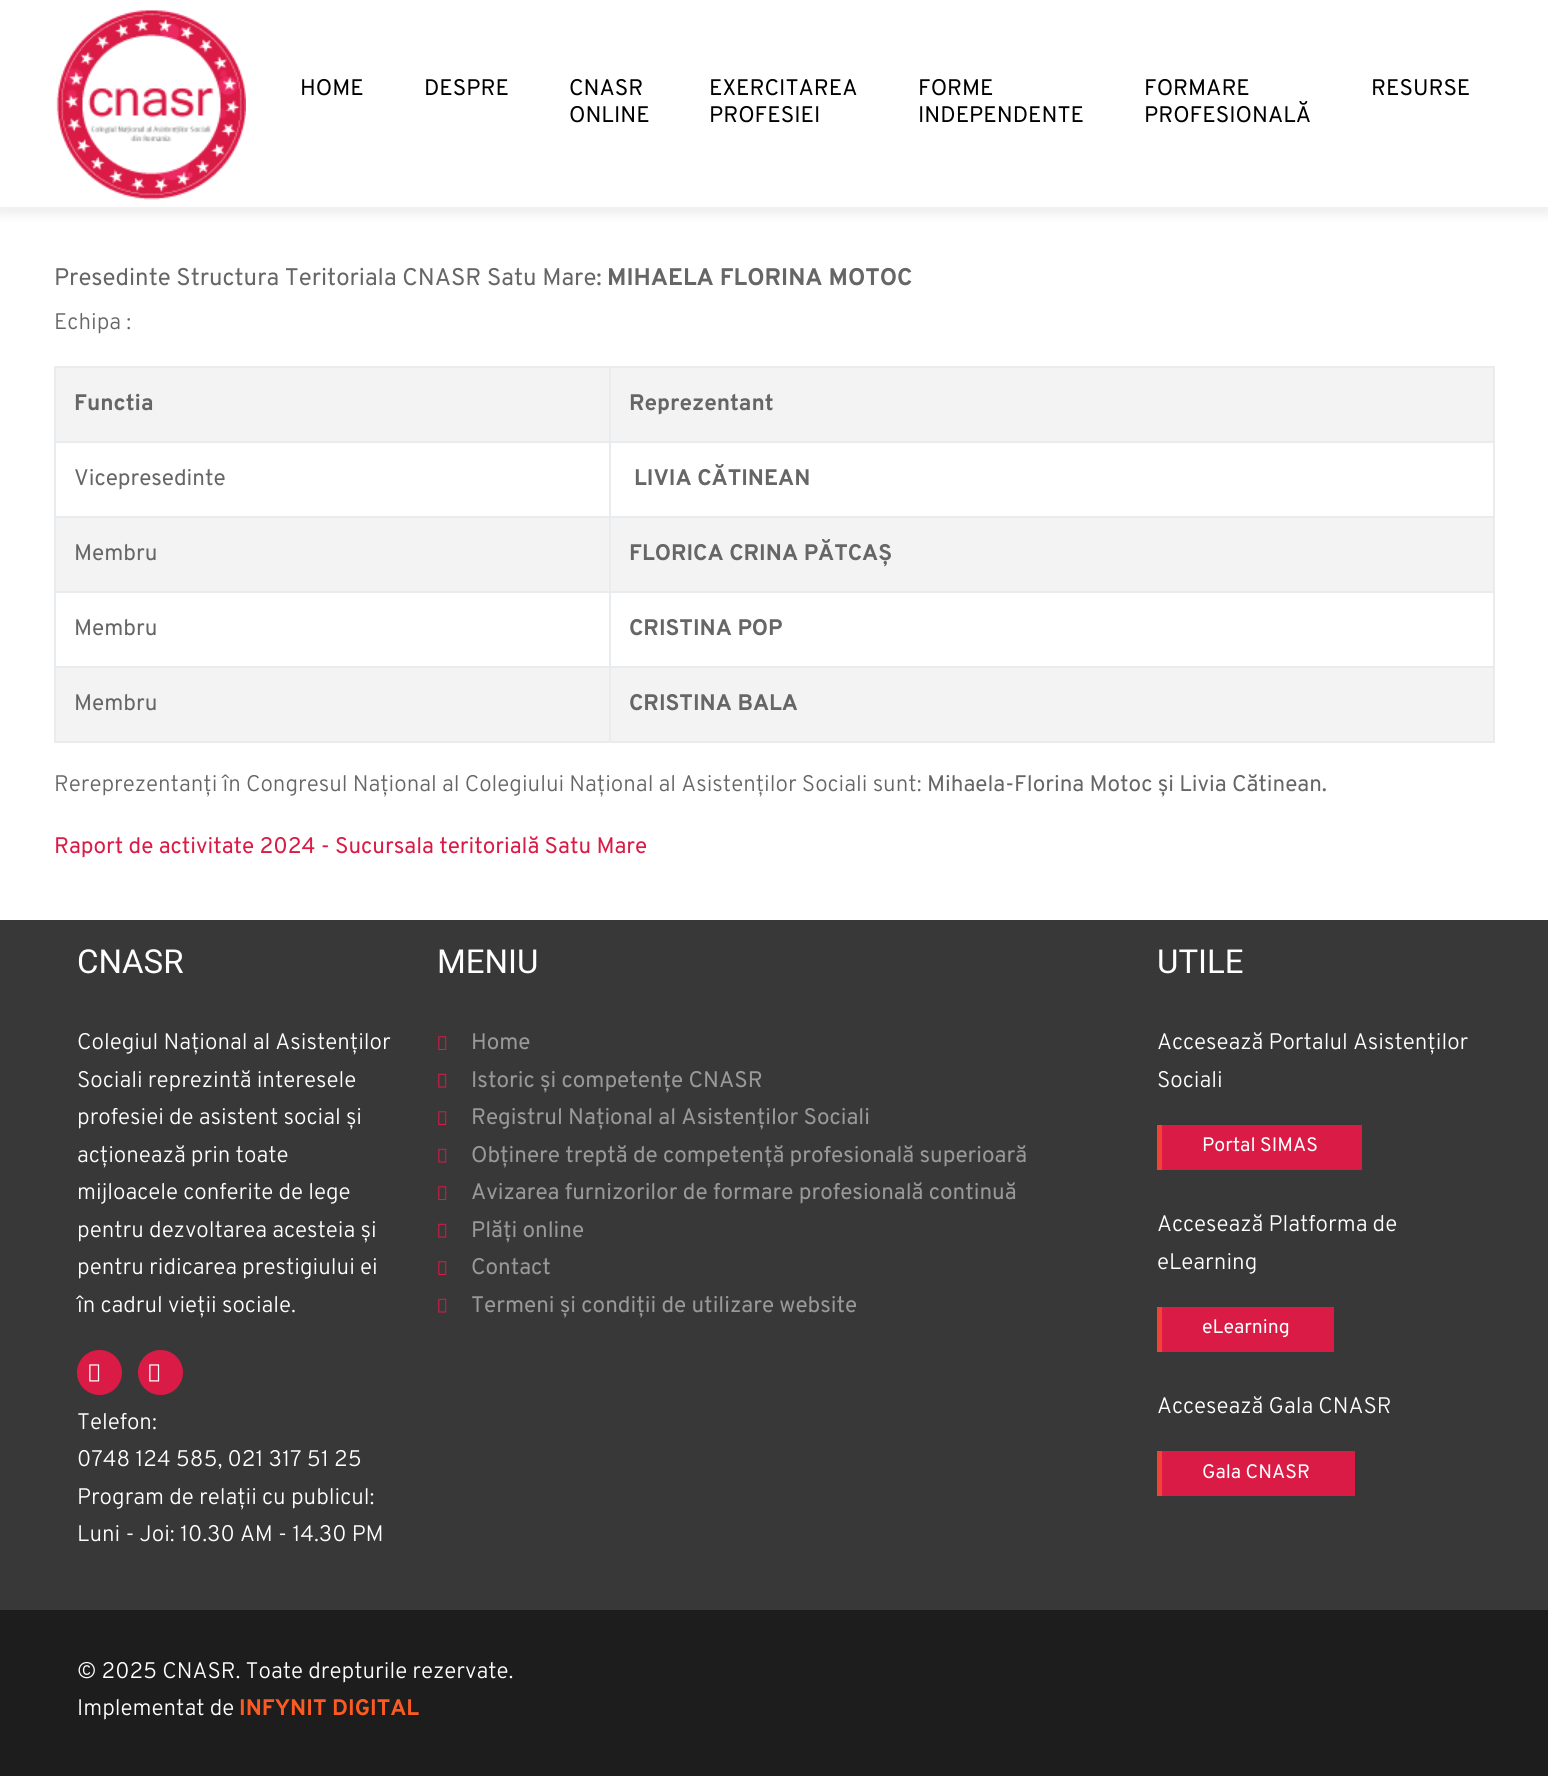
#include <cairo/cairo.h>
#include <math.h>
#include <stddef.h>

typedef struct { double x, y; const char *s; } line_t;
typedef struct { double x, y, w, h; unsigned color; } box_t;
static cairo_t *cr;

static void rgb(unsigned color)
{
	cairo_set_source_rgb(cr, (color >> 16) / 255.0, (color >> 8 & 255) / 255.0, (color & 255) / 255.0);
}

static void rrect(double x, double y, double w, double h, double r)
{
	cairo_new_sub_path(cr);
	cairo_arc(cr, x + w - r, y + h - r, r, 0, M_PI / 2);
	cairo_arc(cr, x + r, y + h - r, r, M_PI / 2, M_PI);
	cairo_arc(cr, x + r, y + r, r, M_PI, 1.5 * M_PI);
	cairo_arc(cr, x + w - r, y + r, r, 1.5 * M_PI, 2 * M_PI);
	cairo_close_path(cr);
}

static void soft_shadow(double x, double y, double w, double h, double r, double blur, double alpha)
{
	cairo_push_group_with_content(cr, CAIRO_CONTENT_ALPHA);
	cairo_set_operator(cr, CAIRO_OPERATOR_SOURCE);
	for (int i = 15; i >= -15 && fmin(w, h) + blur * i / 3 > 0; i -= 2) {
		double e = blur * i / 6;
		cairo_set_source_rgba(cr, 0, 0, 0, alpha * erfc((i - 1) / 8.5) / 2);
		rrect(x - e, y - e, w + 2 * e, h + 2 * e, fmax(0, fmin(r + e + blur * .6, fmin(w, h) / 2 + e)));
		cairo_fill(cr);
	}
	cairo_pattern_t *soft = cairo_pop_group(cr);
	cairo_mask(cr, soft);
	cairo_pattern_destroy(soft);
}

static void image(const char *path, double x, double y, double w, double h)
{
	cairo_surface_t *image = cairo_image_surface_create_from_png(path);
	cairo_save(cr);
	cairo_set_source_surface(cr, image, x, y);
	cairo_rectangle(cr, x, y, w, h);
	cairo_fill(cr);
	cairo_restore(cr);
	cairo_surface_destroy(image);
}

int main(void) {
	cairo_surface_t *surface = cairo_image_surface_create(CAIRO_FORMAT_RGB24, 1548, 1776);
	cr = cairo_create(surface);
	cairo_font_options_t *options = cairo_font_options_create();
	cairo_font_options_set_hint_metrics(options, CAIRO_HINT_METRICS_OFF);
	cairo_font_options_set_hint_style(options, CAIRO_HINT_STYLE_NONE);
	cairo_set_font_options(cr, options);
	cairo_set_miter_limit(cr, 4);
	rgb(0xffffff);
	cairo_paint(cr);
	rgb(0x000000);
	soft_shadow(-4, 0, 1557, 216, 0, 4.5, 0.06);
	rgb(0xffffff);
	cairo_rectangle(cr, 0, 0, 1548, 207);
	cairo_fill(cr);
	image("img/1.png", 56, 10, 190, 190);
	{
		static const box_t items[] = {
			{54, 366, 1440, 2, 0xe9ecef},
			{1493, 366, 2, 377, 0xe9ecef},
			{54, 741, 1440, 2, 0xe9ecef},
			{54, 366, 2, 377, 0xe9ecef},
			{56, 368, 1437, 73, 0xf3f3f3},
			{609, 441, 885, 2, 0xe9ecef},
			{609, 516, 885, 2, 0xe9ecef},
			{56, 518, 1437, 73, 0xf3f3f3},
			{609, 591, 885, 2, 0xe9ecef},
			{609, 666, 885, 2, 0xe9ecef},
			{56, 668, 1437, 73, 0xf3f3f3},
			{609, 666, 2, 77, 0xe9ecef},
			{54, 666, 557, 2, 0xe9ecef},
			{609, 591, 2, 77, 0xe9ecef},
			{54, 591, 557, 2, 0xe9ecef},
			{609, 516, 2, 77, 0xe9ecef},
			{54, 516, 557, 2, 0xe9ecef},
			{609, 441, 2, 77, 0xe9ecef},
			{54, 441, 557, 2, 0xe9ecef},
			{609, 366, 2, 77, 0xe9ecef},
			{0, 920, 1548, 690, 0x383838},
		};
		for (size_t i = 0; i < sizeof items / sizeof *items; i++) {
			rgb(items[i].color);
			cairo_rectangle(cr, items[i].x, items[i].y, items[i].w, items[i].h);
			cairo_fill(cr);
		}
	}
	rgb(0xda1b46);
	cairo_arc(cr, 99.5, 1372.5, 22.5, 0, 2 * M_PI);
	cairo_fill(cr);
	image("img/2.png", 89, 1364, 11, 18);
	cairo_arc(cr, 160.5, 1372.5, 22.5, 0, 2 * M_PI);
	cairo_fill(cr);
	image("img/2.png", 149, 1364, 11, 18);
	image("img/3.png", 438, 1036, 9, 14);
	image("img/4.png", 438, 1073, 9, 15);
	image("img/3.png", 438, 1111, 9, 14);
	image("img/4.png", 438, 1148, 9, 15);
	image("img/3.png", 438, 1186, 9, 14);
	image("img/4.png", 438, 1223, 9, 15);
	image("img/3.png", 438, 1261, 9, 14);
	image("img/4.png", 438, 1298, 9, 15);
	{
		static const box_t items[] = {
			{1162, 1125, 200, 45, 0xda1b46},
			{1157, 1125, 5, 45, 0xf44336},
			{1162, 1307, 172, 45, 0xda1b46},
			{1157, 1307, 5, 45, 0xf44336},
			{1162, 1451, 193, 45, 0xda1b46},
			{1157, 1451, 5, 45, 0xf44336},
			{0, 1610, 1548, 166, 0x1d1d1d},
		};
		for (size_t i = 0; i < sizeof items / sizeof *items; i++) {
			rgb(items[i].color);
			cairo_rectangle(cr, items[i].x, items[i].y, items[i].w, items[i].h);
			cairo_fill(cr);
		}
	}
	cairo_select_font_face(cr, "Overpass", CAIRO_FONT_SLANT_NORMAL, CAIRO_FONT_WEIGHT_NORMAL);
	cairo_set_font_size(cr, 22.5);
	rgb(0x000000);
	{
		static const line_t items[] = {
			{300, 95, "HOME"},
			{424, 95, "DESPRE"},
			{569, 95, "CNASR"},
			{569, 122, "ONLINE"},
			{709, 95, "EXERCITAREA"},
			{709, 122, "PROFESIEI"},
			{918, 95, "FORME"},
			{918, 122, "INDEPENDENTE"},
			{1144, 95, "FORMARE"},
			{1144, 122, "PROFESIONALĂ"},
			{1371, 95, "RESURSE"},
		};
		for (size_t i = 0; i < sizeof items / sizeof *items; i++) {
			cairo_move_to(cr, items[i].x, items[i].y);
			cairo_show_text(cr, items[i].s);
		}
	}
	cairo_set_font_size(cr, 24);
	rgb(0x666666);
	cairo_move_to(cr, 54, 285);
	cairo_show_text(cr, "Presedinte Structura Teritoriala CNASR Satu Mare:");
	cairo_select_font_face(cr, "Overpass", CAIRO_FONT_SLANT_NORMAL, CAIRO_FONT_WEIGHT_BOLD);
	cairo_move_to(cr, 607, 285);
	cairo_show_text(cr, "MIHAELA FLORINA MOTOC");
	cairo_select_font_face(cr, "Overpass Light", CAIRO_FONT_SLANT_NORMAL, CAIRO_FONT_WEIGHT_NORMAL);
	cairo_set_font_size(cr, 22.5);
	cairo_move_to(cr, 54, 329);
	cairo_show_text(cr, "Echipa :");
	cairo_select_font_face(cr, "Overpass", CAIRO_FONT_SLANT_NORMAL, CAIRO_FONT_WEIGHT_BOLD);
	cairo_move_to(cr, 74, 410);
	cairo_show_text(cr, "Functia");
	cairo_move_to(cr, 629, 410);
	cairo_show_text(cr, "Reprezentant");
	cairo_select_font_face(cr, "Overpass", CAIRO_FONT_SLANT_NORMAL, CAIRO_FONT_WEIGHT_NORMAL);
	cairo_move_to(cr, 74, 485);
	cairo_show_text(cr, "Vicepresedinte");
	cairo_select_font_face(cr, "Overpass", CAIRO_FONT_SLANT_NORMAL, CAIRO_FONT_WEIGHT_BOLD);
	cairo_move_to(cr, 634, 485);
	cairo_show_text(cr, "LIVIA CĂTINEAN");
	cairo_select_font_face(cr, "Overpass", CAIRO_FONT_SLANT_NORMAL, CAIRO_FONT_WEIGHT_NORMAL);
	cairo_move_to(cr, 74, 560);
	cairo_show_text(cr, "Membru");
	cairo_select_font_face(cr, "Overpass", CAIRO_FONT_SLANT_NORMAL, CAIRO_FONT_WEIGHT_BOLD);
	cairo_move_to(cr, 629, 560);
	cairo_show_text(cr, "FLORICA CRINA PĂTCAȘ");
	cairo_select_font_face(cr, "Overpass", CAIRO_FONT_SLANT_NORMAL, CAIRO_FONT_WEIGHT_NORMAL);
	cairo_move_to(cr, 74, 635);
	cairo_show_text(cr, "Membru");
	cairo_select_font_face(cr, "Overpass", CAIRO_FONT_SLANT_NORMAL, CAIRO_FONT_WEIGHT_BOLD);
	cairo_move_to(cr, 629, 635);
	cairo_show_text(cr, "CRISTINA POP");
	cairo_select_font_face(cr, "Overpass", CAIRO_FONT_SLANT_NORMAL, CAIRO_FONT_WEIGHT_NORMAL);
	cairo_move_to(cr, 74, 710);
	cairo_show_text(cr, "Membru");
	cairo_select_font_face(cr, "Overpass", CAIRO_FONT_SLANT_NORMAL, CAIRO_FONT_WEIGHT_BOLD);
	cairo_move_to(cr, 629, 710);
	cairo_show_text(cr, "CRISTINA BALA");
	cairo_select_font_face(cr, "Overpass Light", CAIRO_FONT_SLANT_NORMAL, CAIRO_FONT_WEIGHT_NORMAL);
	cairo_move_to(cr, 54, 791);
	cairo_show_text(cr, "Rereprezentanți în Congresul Național al Colegiului Național al Asistenților Sociali sunt:");
	cairo_select_font_face(cr, "Overpass", CAIRO_FONT_SLANT_NORMAL, CAIRO_FONT_WEIGHT_NORMAL);
	cairo_move_to(cr, 927, 791);
	cairo_show_text(cr, "Mihaela-Florina Motoc și Livia Cătinean.");
	rgb(0xda1b46);
	cairo_move_to(cr, 54, 853);
	cairo_show_text(cr, "Raport de activitate 2024 - Sucursala teritorială Satu Mare");
	cairo_select_font_face(cr, "Roboto", CAIRO_FONT_SLANT_NORMAL, CAIRO_FONT_WEIGHT_NORMAL);
	cairo_set_font_size(cr, 33);
	rgb(0xffffff);
	cairo_move_to(cr, 77, 973);
	cairo_show_text(cr, "CNASR");
	cairo_select_font_face(cr, "Overpass Light", CAIRO_FONT_SLANT_NORMAL, CAIRO_FONT_WEIGHT_NORMAL);
	cairo_set_font_size(cr, 22.5);
	{
		static const line_t items[] = {
			{77, 1049, "Colegiul Național al Asistenților"},
			{77, 1087, "Sociali reprezintă interesele"},
			{77, 1124, "profesiei de asistent social și"},
			{77, 1162, "acționează prin toate"},
			{77, 1199, "mijloacele conferite de lege"},
			{77, 1237, "pentru dezvoltarea acesteia și"},
			{77, 1274, "pentru ridicarea prestigiului ei"},
			{77, 1312, "în cadrul vieții sociale."},
			{77, 1429, "Telefon:"},
			{77, 1466, "0748 124 585, 021 317 51 25"},
			{77, 1504, "Program de relații cu publicul:"},
			{77, 1541, "Luni - Joi: 10.30 AM - 14.30 PM"},
		};
		for (size_t i = 0; i < sizeof items / sizeof *items; i++) {
			cairo_move_to(cr, items[i].x, items[i].y);
			cairo_show_text(cr, items[i].s);
		}
	}
	cairo_select_font_face(cr, "Roboto", CAIRO_FONT_SLANT_NORMAL, CAIRO_FONT_WEIGHT_NORMAL);
	cairo_set_font_size(cr, 33);
	cairo_move_to(cr, 437, 973);
	cairo_show_text(cr, "MENIU");
	cairo_select_font_face(cr, "Overpass", CAIRO_FONT_SLANT_NORMAL, CAIRO_FONT_WEIGHT_NORMAL);
	cairo_set_font_size(cr, 22.5);
	rgb(0x999999);
	{
		static const line_t items[] = {
			{471, 1049, "Home"},
			{471, 1087, "Istoric și competențe CNASR"},
			{471, 1124, "Registrul Național al Asistenților Sociali"},
			{471, 1162, "Obținere treptă de competență profesională superioară"},
			{471, 1199, "Avizarea furnizorilor de formare profesională continuă"},
			{471, 1237, "Plăți online"},
			{471, 1274, "Contact"},
			{471, 1312, "Termeni și condiții de utilizare website"},
		};
		for (size_t i = 0; i < sizeof items / sizeof *items; i++) {
			cairo_move_to(cr, items[i].x, items[i].y);
			cairo_show_text(cr, items[i].s);
		}
	}
	cairo_select_font_face(cr, "Roboto", CAIRO_FONT_SLANT_NORMAL, CAIRO_FONT_WEIGHT_NORMAL);
	cairo_set_font_size(cr, 33);
	rgb(0xffffff);
	cairo_move_to(cr, 1157, 973);
	cairo_show_text(cr, "UTILE");
	cairo_select_font_face(cr, "Overpass Light", CAIRO_FONT_SLANT_NORMAL, CAIRO_FONT_WEIGHT_NORMAL);
	cairo_set_font_size(cr, 22.5);
	cairo_move_to(cr, 1157, 1049);
	cairo_show_text(cr, "Accesează Portalul Asistenților");
	cairo_move_to(cr, 1157, 1087);
	cairo_show_text(cr, "Sociali");
	cairo_select_font_face(cr, "Overpass", CAIRO_FONT_SLANT_NORMAL, CAIRO_FONT_WEIGHT_NORMAL);
	cairo_set_font_size(cr, 19.5);
	cairo_move_to(cr, 1202, 1151);
	cairo_show_text(cr, "Portal SIMAS");
	cairo_select_font_face(cr, "Overpass Light", CAIRO_FONT_SLANT_NORMAL, CAIRO_FONT_WEIGHT_NORMAL);
	cairo_set_font_size(cr, 22.5);
	cairo_move_to(cr, 1157, 1231);
	cairo_show_text(cr, "Accesează Platforma de");
	cairo_move_to(cr, 1157, 1269);
	cairo_show_text(cr, "eLearning");
	cairo_select_font_face(cr, "Overpass", CAIRO_FONT_SLANT_NORMAL, CAIRO_FONT_WEIGHT_NORMAL);
	cairo_set_font_size(cr, 19.5);
	cairo_move_to(cr, 1202, 1333);
	cairo_show_text(cr, "eLearning");
	cairo_select_font_face(cr, "Overpass Light", CAIRO_FONT_SLANT_NORMAL, CAIRO_FONT_WEIGHT_NORMAL);
	cairo_set_font_size(cr, 22.5);
	cairo_move_to(cr, 1157, 1413);
	cairo_show_text(cr, "Accesează Gala CNASR");
	cairo_select_font_face(cr, "Overpass", CAIRO_FONT_SLANT_NORMAL, CAIRO_FONT_WEIGHT_NORMAL);
	cairo_set_font_size(cr, 19.5);
	cairo_move_to(cr, 1202, 1478);
	cairo_show_text(cr, "Gala CNASR");
	cairo_select_font_face(cr, "Overpass Light", CAIRO_FONT_SLANT_NORMAL, CAIRO_FONT_WEIGHT_NORMAL);
	cairo_set_font_size(cr, 22.5);
	cairo_move_to(cr, 77, 1678);
	cairo_show_text(cr, "© 2025 CNASR. Toate drepturile rezervate.");
	cairo_move_to(cr, 77, 1715);
	cairo_show_text(cr, "Implementat de");
	cairo_select_font_face(cr, "Overpass", CAIRO_FONT_SLANT_NORMAL, CAIRO_FONT_WEIGHT_BOLD);
	rgb(0xfd5a22);
	cairo_move_to(cr, 239, 1715);
	cairo_show_text(cr, "INFYNIT DIGITAL");
	cairo_surface_write_to_png(surface, "page.png");
	cairo_font_options_destroy(options);
	cairo_destroy(cr);
	cairo_surface_destroy(surface);
	return 0;
}
